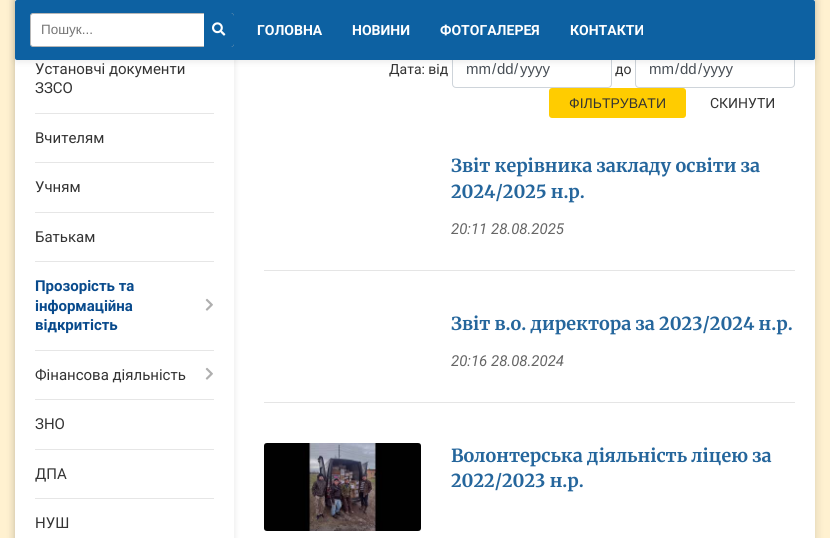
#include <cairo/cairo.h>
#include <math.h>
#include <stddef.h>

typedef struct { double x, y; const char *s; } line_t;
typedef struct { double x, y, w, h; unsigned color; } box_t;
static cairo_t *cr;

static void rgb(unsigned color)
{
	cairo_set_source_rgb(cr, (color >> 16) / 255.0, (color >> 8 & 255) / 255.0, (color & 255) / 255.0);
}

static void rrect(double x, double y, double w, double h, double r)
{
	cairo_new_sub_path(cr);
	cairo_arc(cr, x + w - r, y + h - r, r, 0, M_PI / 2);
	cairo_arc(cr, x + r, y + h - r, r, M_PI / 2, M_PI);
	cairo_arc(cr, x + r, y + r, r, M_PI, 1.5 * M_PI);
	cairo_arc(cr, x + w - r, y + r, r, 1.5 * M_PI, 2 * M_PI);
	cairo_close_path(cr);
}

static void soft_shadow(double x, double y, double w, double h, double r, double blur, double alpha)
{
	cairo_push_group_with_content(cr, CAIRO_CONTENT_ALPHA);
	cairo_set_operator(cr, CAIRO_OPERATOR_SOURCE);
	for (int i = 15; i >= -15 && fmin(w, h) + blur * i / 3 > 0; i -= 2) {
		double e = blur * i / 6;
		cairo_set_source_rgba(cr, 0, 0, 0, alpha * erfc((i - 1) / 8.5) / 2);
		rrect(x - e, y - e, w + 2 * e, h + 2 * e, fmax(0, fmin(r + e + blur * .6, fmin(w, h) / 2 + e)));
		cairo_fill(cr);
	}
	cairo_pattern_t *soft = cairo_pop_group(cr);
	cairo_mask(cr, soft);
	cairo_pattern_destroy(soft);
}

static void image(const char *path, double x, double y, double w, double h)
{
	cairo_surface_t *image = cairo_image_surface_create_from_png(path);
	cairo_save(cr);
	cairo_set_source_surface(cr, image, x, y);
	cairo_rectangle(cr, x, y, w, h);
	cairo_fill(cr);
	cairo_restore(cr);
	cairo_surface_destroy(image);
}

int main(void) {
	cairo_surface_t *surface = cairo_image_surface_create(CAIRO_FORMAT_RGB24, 830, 538);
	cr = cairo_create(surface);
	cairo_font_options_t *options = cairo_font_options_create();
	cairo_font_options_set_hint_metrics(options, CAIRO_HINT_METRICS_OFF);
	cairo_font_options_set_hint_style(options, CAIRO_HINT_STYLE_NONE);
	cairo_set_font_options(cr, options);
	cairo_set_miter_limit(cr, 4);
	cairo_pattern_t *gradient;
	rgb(0xffffff);
	cairo_paint(cr);
	gradient = cairo_pattern_create_linear(415, -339, 415, 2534);
	cairo_pattern_add_color_stop_rgba(gradient, 0.07, 1, 0.945, 0.816, 0);
	cairo_pattern_add_color_stop_rgba(gradient, 0.1, 1, 0.945, 0.816, 1);
	cairo_set_source(cr, gradient);
	cairo_pattern_destroy(gradient);
	cairo_rectangle(cr, 0, 0, 830, 538);
	cairo_fill(cr);
	rgb(0x000000);
	soft_shadow(15, -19, 800, 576, 4, 5, 0.15);
	rgb(0xffffff);
	cairo_rectangle(cr, 15, 0, 800, 538);
	cairo_fill(cr);
	cairo_save(cr);
	cairo_set_fill_rule(cr, CAIRO_FILL_RULE_EVEN_ODD);
	cairo_new_path(cr);
	cairo_move_to(cr, 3, 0);
	cairo_line_to(cr, 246, 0);
	cairo_line_to(cr, 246, 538);
	cairo_line_to(cr, 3, 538);
	cairo_close_path(cr);
	cairo_move_to(cr, 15, -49);
	cairo_line_to(cr, 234, -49);
	cairo_line_to(cr, 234, 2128);
	cairo_line_to(cr, 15, 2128);
	cairo_close_path(cr);
	cairo_clip(cr);
	rgb(0x000000);
	soft_shadow(15, -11, 219, 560, 0, 3.5, 0.1);
	cairo_restore(cr);
	{
		static const box_t items[] = {
			{35, 113, 179, 1, 0xe6e6e6},
			{35, 162, 179, 1, 0xe6e6e6},
			{35, 212, 179, 1, 0xe6e6e6},
			{35, 261, 179, 1, 0xe6e6e6},
			{35, 350, 179, 1, 0xe6e6e6},
		};
		for (size_t i = 0; i < sizeof items / sizeof *items; i++) {
			rgb(items[i].color);
			cairo_rectangle(cr, items[i].x, items[i].y, items[i].w, items[i].h);
			cairo_fill(cr);
		}
	}
	image("img/1.png", 205, 298, 8, 13);
	cairo_rectangle(cr, 35, 399, 179, 1);
	cairo_fill(cr);
	image("img/1.png", 205, 367, 8, 13);
	cairo_rectangle(cr, 35, 449, 179, 1);
	cairo_fill(cr);
	cairo_rectangle(cr, 35, 498, 179, 1);
	cairo_fill(cr);
	rrect(452.5, 50.5, 159, 37, 3.5);
	rgb(0xced4da);
	cairo_set_line_width(cr, 1);
	cairo_stroke(cr);
	rrect(635.5, 50.5, 159, 37, 3.5);
	cairo_stroke(cr);
	rgb(0x000000);
	soft_shadow(15, 1, 800, 60, 2, 3.5, 0.1);
	rgb(0x0d61a2);
	rrect(15, 0, 800, 60, 2);
	cairo_fill(cr);
	rgb(0xffcc00);
	rrect(549, 88, 137, 30, 3);
	cairo_fill(cr);
	rgb(0xe5e5e5);
	cairo_rectangle(cr, 264, 270, 531, 1);
	cairo_fill(cr);
	cairo_rectangle(cr, 264, 402, 531, 1);
	cairo_fill(cr);
	image("img/2.png", 264, 443, 157, 88);
	rgb(0xffffff);
	rrect(30.5, 13.5, 203, 33, 2.5);
	cairo_fill_preserve(cr);
	rgb(0xb7b7b7);
	cairo_stroke(cr);
	rgb(0x0d61a2);
	cairo_new_path(cr);
	cairo_move_to(cr, 204, 13);
	cairo_line_to(cr, 231, 13);
	cairo_curve_to(cr, 232.5, 13, 234, 14.5, 234, 16);
	cairo_line_to(cr, 234, 44);
	cairo_curve_to(cr, 234, 45.5, 232.5, 47, 231, 47);
	cairo_line_to(cr, 204, 47);
	cairo_close_path(cr);
	cairo_fill(cr);
	image("img/3.png", 212, 22, 14, 14);
	cairo_select_font_face(cr, "Roboto", CAIRO_FONT_SLANT_NORMAL, CAIRO_FONT_WEIGHT_NORMAL);
	cairo_set_font_size(cr, 15);
	rgb(0x333333);
	{
		static const line_t items[] = {
			{35, 74, "Установчі документи"},
			{35, 93, "ЗЗСО"},
			{35, 143, "Вчителям"},
			{35, 192, "Учням"},
			{35, 242, "Батькам"},
		};
		for (size_t i = 0; i < sizeof items / sizeof *items; i++) {
			cairo_move_to(cr, items[i].x, items[i].y);
			cairo_show_text(cr, items[i].s);
		}
	}
	cairo_select_font_face(cr, "Roboto", CAIRO_FONT_SLANT_NORMAL, CAIRO_FONT_WEIGHT_BOLD);
	rgb(0x084a8c);
	{
		static const line_t items[] = {
			{35, 291, "Прозорість та"},
			{35, 311, "інформаційна"},
			{35, 330, "відкритість"},
		};
		for (size_t i = 0; i < sizeof items / sizeof *items; i++) {
			cairo_move_to(cr, items[i].x, items[i].y);
			cairo_show_text(cr, items[i].s);
		}
	}
	cairo_select_font_face(cr, "Roboto", CAIRO_FONT_SLANT_NORMAL, CAIRO_FONT_WEIGHT_NORMAL);
	rgb(0x333333);
	{
		static const line_t items[] = {
			{35, 380, "Фінансова діяльність"},
			{35, 429, "ЗНО"},
			{35, 479, "ДПА"},
			{35, 528, "НУШ"},
		};
		for (size_t i = 0; i < sizeof items / sizeof *items; i++) {
			cairo_move_to(cr, items[i].x, items[i].y);
			cairo_show_text(cr, items[i].s);
		}
	}
	cairo_select_font_face(cr, "Roboto", CAIRO_FONT_SLANT_NORMAL, CAIRO_FONT_WEIGHT_BOLD);
	cairo_set_font_size(cr, 14);
	rgb(0xffffff);
	{
		static const line_t items[] = {
			{257, 35, "ГОЛОВНА"},
			{352, 35, "НОВИНИ"},
			{440, 35, "ФОТОГАЛЕРЕЯ"},
			{570, 35, "КОНТАКТИ"},
		};
		for (size_t i = 0; i < sizeof items / sizeof *items; i++) {
			cairo_move_to(cr, items[i].x, items[i].y);
			cairo_show_text(cr, items[i].s);
		}
	}
	cairo_select_font_face(cr, "Roboto", CAIRO_FONT_SLANT_NORMAL, CAIRO_FONT_WEIGHT_NORMAL);
	rgb(0x333333);
	cairo_move_to(cr, 389, 74);
	cairo_show_text(cr, "Дата: від");
	cairo_select_font_face(cr, "Liberation Sans", CAIRO_FONT_SLANT_NORMAL, CAIRO_FONT_WEIGHT_NORMAL);
	cairo_set_font_size(cr, 15);
	rgb(0x495057);
	{
		static const line_t items[] = {
			{466, 74, "mm"},
			{492, 74, "/"},
			{497, 74, "dd"},
			{514, 74, "/"},
			{520, 74, "yyyy"},
		};
		for (size_t i = 0; i < sizeof items / sizeof *items; i++) {
			cairo_move_to(cr, items[i].x, items[i].y);
			cairo_show_text(cr, items[i].s);
		}
	}
	cairo_select_font_face(cr, "Roboto", CAIRO_FONT_SLANT_NORMAL, CAIRO_FONT_WEIGHT_NORMAL);
	cairo_set_font_size(cr, 14);
	rgb(0x333333);
	cairo_move_to(cr, 615, 74);
	cairo_show_text(cr, "до");
	cairo_select_font_face(cr, "Liberation Sans", CAIRO_FONT_SLANT_NORMAL, CAIRO_FONT_WEIGHT_NORMAL);
	cairo_set_font_size(cr, 15);
	rgb(0x495057);
	{
		static const line_t items[] = {
			{649, 74, "mm"},
			{675, 74, "/"},
			{680, 74, "dd"},
			{698, 74, "/"},
			{703, 74, "yyyy"},
		};
		for (size_t i = 0; i < sizeof items / sizeof *items; i++) {
			cairo_move_to(cr, items[i].x, items[i].y);
			cairo_show_text(cr, items[i].s);
		}
	}
	cairo_set_font_size(cr, 14);
	rgb(0x333333);
	cairo_move_to(cr, 569, 108);
	cairo_show_text(cr, "ФІЛЬТРУВАТИ");
	cairo_select_font_face(cr, "Roboto", CAIRO_FONT_SLANT_NORMAL, CAIRO_FONT_WEIGHT_NORMAL);
	cairo_move_to(cr, 710, 108);
	cairo_show_text(cr, "СКИНУТИ");
	cairo_select_font_face(cr, "Merriweather Light", CAIRO_FONT_SLANT_NORMAL, CAIRO_FONT_WEIGHT_NORMAL);
	cairo_set_font_size(cr, 18);
	rgb(0x25669c);
	cairo_move_to(cr, 451, 172);
	cairo_show_text(cr, "Звіт керівника закладу освіти за");
	cairo_move_to(cr, 451, 198);
	cairo_show_text(cr, "2024/2025 н.р.");
	cairo_select_font_face(cr, "Roboto", CAIRO_FONT_SLANT_ITALIC, CAIRO_FONT_WEIGHT_NORMAL);
	cairo_set_font_size(cr, 15);
	rgb(0x666666);
	cairo_move_to(cr, 451, 234);
	cairo_show_text(cr, "20:11 28.08.2025");
	cairo_select_font_face(cr, "Merriweather Light", CAIRO_FONT_SLANT_NORMAL, CAIRO_FONT_WEIGHT_NORMAL);
	cairo_set_font_size(cr, 18);
	rgb(0x25669c);
	cairo_move_to(cr, 451, 330);
	cairo_show_text(cr, "Звіт в.о. директора за 2023/2024 н.р.");
	cairo_select_font_face(cr, "Roboto", CAIRO_FONT_SLANT_ITALIC, CAIRO_FONT_WEIGHT_NORMAL);
	cairo_set_font_size(cr, 15);
	rgb(0x666666);
	cairo_move_to(cr, 451, 366);
	cairo_show_text(cr, "20:16 28.08.2024");
	cairo_select_font_face(cr, "Merriweather Light", CAIRO_FONT_SLANT_NORMAL, CAIRO_FONT_WEIGHT_NORMAL);
	cairo_set_font_size(cr, 18);
	rgb(0x25669c);
	cairo_move_to(cr, 451, 462);
	cairo_show_text(cr, "Волонтерська діяльність ліцею за");
	cairo_move_to(cr, 451, 487);
	cairo_show_text(cr, "2022/2023 н.р.");
	cairo_select_font_face(cr, "Liberation Sans", CAIRO_FONT_SLANT_NORMAL, CAIRO_FONT_WEIGHT_NORMAL);
	cairo_set_font_size(cr, 13.5);
	rgb(0x757575);
	cairo_move_to(cr, 41, 34);
	cairo_show_text(cr, "Пошук...");
	cairo_surface_write_to_png(surface, "page.png");
	cairo_font_options_destroy(options);
	cairo_destroy(cr);
	cairo_surface_destroy(surface);
	return 0;
}
